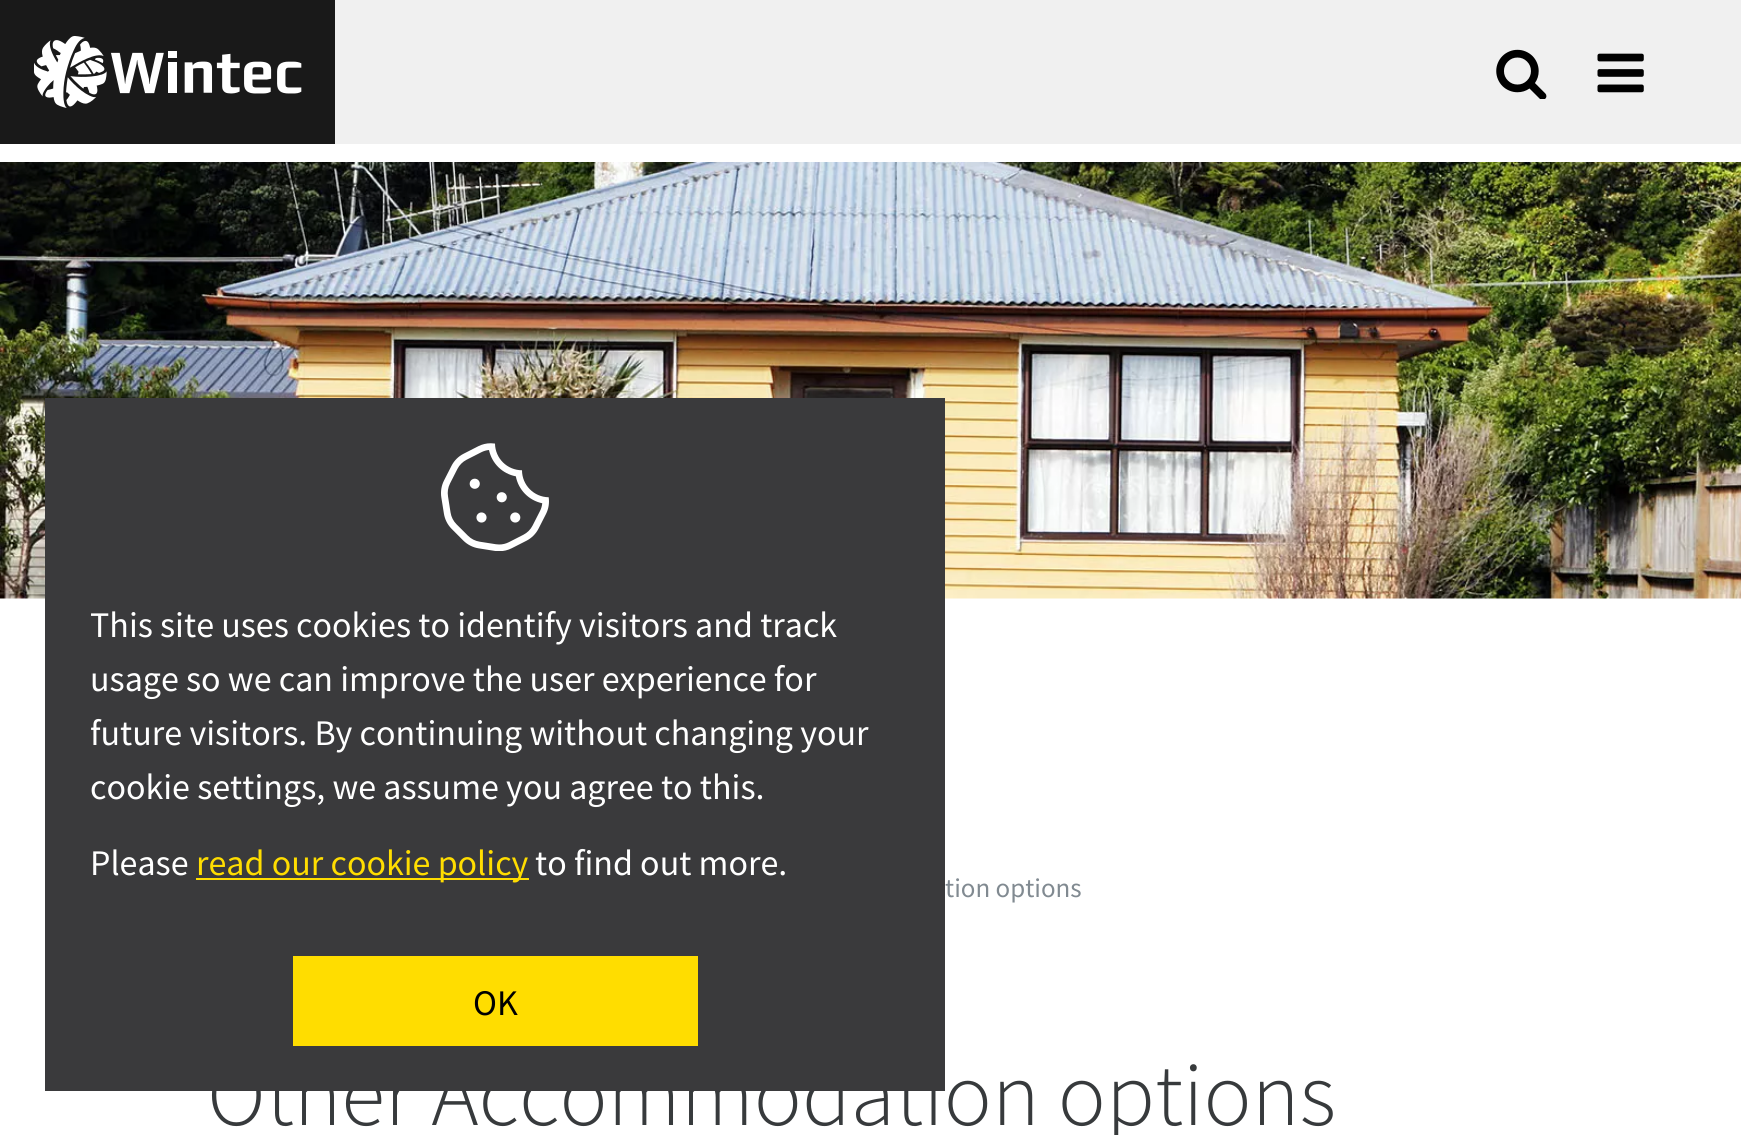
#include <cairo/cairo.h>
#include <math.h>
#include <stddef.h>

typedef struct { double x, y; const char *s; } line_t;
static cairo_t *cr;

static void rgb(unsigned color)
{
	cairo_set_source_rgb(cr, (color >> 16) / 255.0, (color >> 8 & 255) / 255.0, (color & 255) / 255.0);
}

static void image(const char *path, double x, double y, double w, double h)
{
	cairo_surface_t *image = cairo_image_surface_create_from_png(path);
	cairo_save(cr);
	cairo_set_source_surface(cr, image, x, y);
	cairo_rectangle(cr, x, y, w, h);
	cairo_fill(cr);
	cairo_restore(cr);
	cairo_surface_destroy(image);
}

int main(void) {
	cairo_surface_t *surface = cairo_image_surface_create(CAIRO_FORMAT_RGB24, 1741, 1135);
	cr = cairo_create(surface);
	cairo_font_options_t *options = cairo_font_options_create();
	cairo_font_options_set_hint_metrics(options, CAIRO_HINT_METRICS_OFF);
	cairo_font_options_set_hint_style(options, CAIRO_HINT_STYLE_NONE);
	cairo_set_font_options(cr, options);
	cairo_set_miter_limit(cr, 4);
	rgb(0xffffff);
	cairo_paint(cr);
	rgb(0x191919);
	cairo_rectangle(cr, 0, 0, 335, 144);
	cairo_fill(cr);
	image("img/1.png", 34, 36, 268, 72);
	rgb(0xf0f0f0);
	cairo_rectangle(cr, 335, 0, 1406, 144);
	cairo_fill(cr);
	image("img/2.png", 1496, 49, 51, 50);
	image("img/3.png", 1597, 53, 47, 40);
	image("img/5.png", 0, 162, 1741, 437);
	cairo_select_font_face(cr, "Source Sans Pro", CAIRO_FONT_SLANT_NORMAL, CAIRO_FONT_WEIGHT_NORMAL);
	cairo_set_font_size(cr, 27);
	rgb(0x818a91);
	cairo_move_to(cr, 945, 897);
	cairo_show_text(cr, "tion options");
	cairo_select_font_face(cr, "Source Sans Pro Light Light", CAIRO_FONT_SLANT_NORMAL, CAIRO_FONT_WEIGHT_NORMAL);
	cairo_set_font_size(cr, 90);
	rgb(0x373a3c);
	cairo_move_to(cr, 207, 1125);
	cairo_show_text(cr, "Other Accommodation options");
	rgb(0x3a3a3c);
	cairo_rectangle(cr, 45, 398, 900, 693);
	cairo_fill(cr);
	image("img/4.png", 441, 443, 108, 108);
	rgb(0xffdd00);
	cairo_rectangle(cr, 293, 956, 405, 90);
	cairo_fill(cr);
	cairo_select_font_face(cr, "Source Sans Pro", CAIRO_FONT_SLANT_NORMAL, CAIRO_FONT_WEIGHT_NORMAL);
	cairo_set_font_size(cr, 36);
	rgb(0x000000);
	cairo_move_to(cr, 473, 1015);
	cairo_show_text(cr, "OK");
	rgb(0xffffff);
	cairo_move_to(cr, 535, 875);
	cairo_show_text(cr, "to find out more.");
	rgb(0xffdd00);
	cairo_rectangle(cr, 196, 878, 333, 2);
	cairo_fill(cr);
	cairo_move_to(cr, 196, 875);
	cairo_show_text(cr, "read our cookie policy");
	rgb(0xffffff);
	{
		static const line_t items[] = {
			{90, 875, "Please"},
			{90, 799, "cookie settings, we assume you agree to this."},
			{90, 745, "future visitors. By continuing without changing your"},
			{90, 691, "usage so we can improve the user experience for"},
			{90, 637, "This site uses cookies to identify visitors and track"},
		};
		for (size_t i = 0; i < sizeof items / sizeof *items; i++) {
			cairo_move_to(cr, items[i].x, items[i].y);
			cairo_show_text(cr, items[i].s);
		}
	}
	cairo_surface_write_to_png(surface, "page.png");
	cairo_font_options_destroy(options);
	cairo_destroy(cr);
	cairo_surface_destroy(surface);
	return 0;
}
